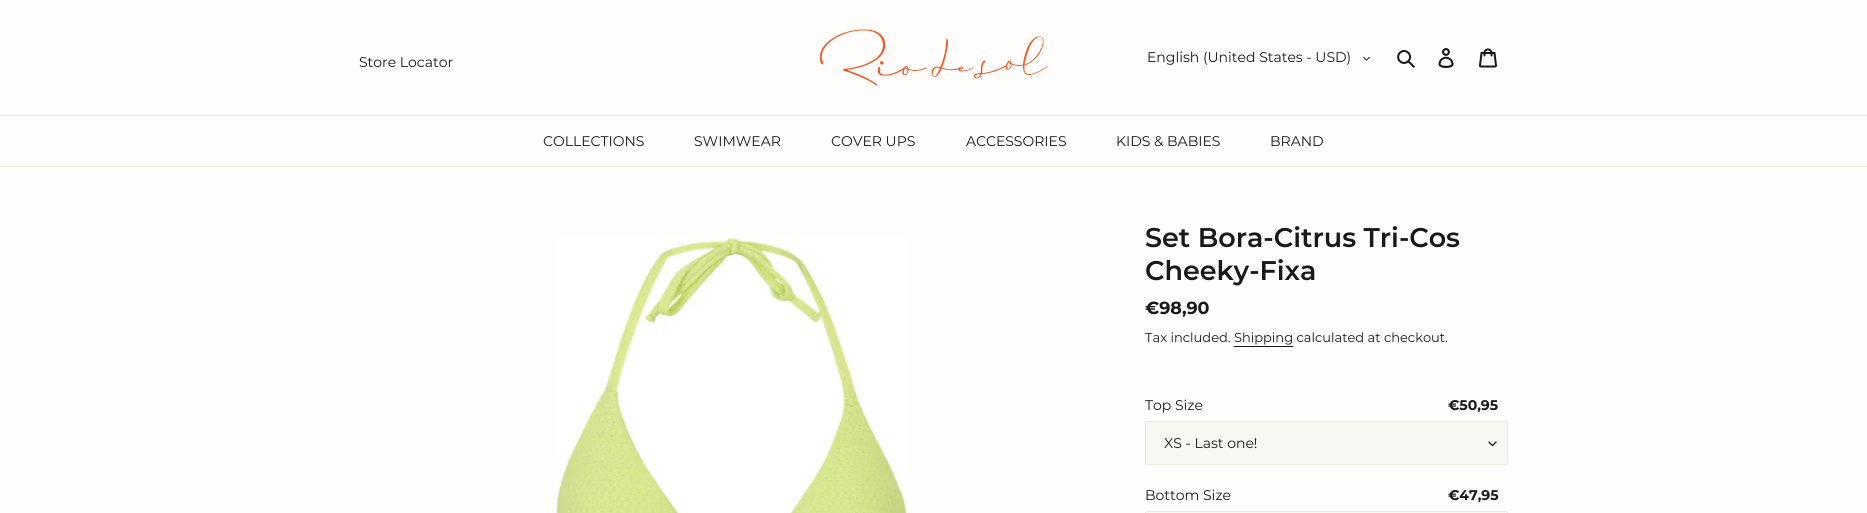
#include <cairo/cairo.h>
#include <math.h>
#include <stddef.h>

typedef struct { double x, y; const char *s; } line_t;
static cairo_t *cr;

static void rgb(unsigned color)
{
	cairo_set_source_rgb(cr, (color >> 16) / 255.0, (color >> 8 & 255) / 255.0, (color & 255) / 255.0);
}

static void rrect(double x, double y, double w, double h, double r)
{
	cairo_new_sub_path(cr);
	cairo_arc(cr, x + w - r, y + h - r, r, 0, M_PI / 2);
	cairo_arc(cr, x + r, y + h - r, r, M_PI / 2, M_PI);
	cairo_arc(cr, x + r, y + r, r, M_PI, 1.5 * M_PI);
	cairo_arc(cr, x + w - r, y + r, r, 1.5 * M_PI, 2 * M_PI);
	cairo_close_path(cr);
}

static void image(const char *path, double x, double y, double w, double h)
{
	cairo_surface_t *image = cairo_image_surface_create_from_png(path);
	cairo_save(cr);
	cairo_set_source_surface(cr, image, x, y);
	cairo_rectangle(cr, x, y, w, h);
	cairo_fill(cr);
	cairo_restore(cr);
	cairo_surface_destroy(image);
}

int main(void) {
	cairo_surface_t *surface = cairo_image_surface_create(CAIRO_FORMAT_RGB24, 1867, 513);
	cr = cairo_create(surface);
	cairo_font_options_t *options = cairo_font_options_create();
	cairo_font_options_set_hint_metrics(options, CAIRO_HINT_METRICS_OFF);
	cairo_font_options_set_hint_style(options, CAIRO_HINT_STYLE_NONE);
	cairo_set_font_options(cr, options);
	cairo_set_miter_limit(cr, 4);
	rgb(0xfffefd);
	cairo_paint(cr);
	image("img/1.png", 819, 29, 230, 57);
	image("img/2.png", 1363, 56, 7, 5);
	image("img/3.png", 1397, 50, 18, 18);
	image("img/4.png", 1438, 48, 16, 20);
	image("img/5.png", 1479, 48, 18, 20);
	rgb(0xf0ebe1);
	cairo_rectangle(cr, 0, 115, 1867, 1);
	cairo_fill(cr);
	cairo_rectangle(cr, 0, 166, 1867, 1);
	cairo_fill(cr);
	image("img/6.png", 556, 238, 351, 275);
	rgb(0x191919);
	cairo_rectangle(cr, 1234, 346, 59, 1);
	cairo_fill(cr);
	rgb(0xf9f7f4);
	rrect(1145, 421, 363, 44, 2);
	cairo_fill(cr);
	image("img/7.png", 1488, 441, 9, 6);
	rrect(1145.5, 421.5, 362, 43, 1.5);
	rgb(0xf0ebe1);
	cairo_set_line_width(cr, 1);
	cairo_stroke(cr);
	rgb(0xf9f7f4);
	rrect(1145.5, 511.5, 362, 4, 1.5);
	cairo_fill_preserve(cr);
	rgb(0xf0ebe1);
	cairo_stroke(cr);
	cairo_select_font_face(cr, "Montserrat", CAIRO_FONT_SLANT_NORMAL, CAIRO_FONT_WEIGHT_NORMAL);
	cairo_set_font_size(cr, 14);
	rgb(0x191919);
	{
		static const line_t items[] = {
			{359, 67, "Store Locator"},
			{1147, 62, "English (United States - USD)"},
			{543, 146, "COLLECTIONS"},
			{694, 146, "SWIMWEAR"},
			{831, 146, "COVER UPS"},
			{966, 146, "ACCESSORIES"},
			{1116, 146, "KIDS & BABIES"},
			{1270, 146, "BRAND"},
		};
		for (size_t i = 0; i < sizeof items / sizeof *items; i++) {
			cairo_move_to(cr, items[i].x, items[i].y);
			cairo_show_text(cr, items[i].s);
		}
	}
	cairo_select_font_face(cr, "Montserrat SemiBold", CAIRO_FONT_SLANT_NORMAL, CAIRO_FONT_WEIGHT_NORMAL);
	cairo_set_font_size(cr, 27);
	cairo_move_to(cr, 1145, 247);
	cairo_show_text(cr, "Set Bora-Citrus Tri-Cos");
	cairo_move_to(cr, 1145, 280);
	cairo_show_text(cr, "Cheeky-Fixa");
	cairo_select_font_face(cr, "Montserrat", CAIRO_FONT_SLANT_NORMAL, CAIRO_FONT_WEIGHT_BOLD);
	cairo_set_font_size(cr, 17.5);
	cairo_move_to(cr, 1145, 314);
	cairo_show_text(cr, "€98,90");
	cairo_select_font_face(cr, "Montserrat", CAIRO_FONT_SLANT_NORMAL, CAIRO_FONT_WEIGHT_NORMAL);
	cairo_set_font_size(cr, 13);
	cairo_move_to(cr, 1145, 342);
	cairo_show_text(cr, "Tax included. Shipping calculated at checkout.");
	cairo_set_font_size(cr, 14);
	cairo_move_to(cr, 1145, 410);
	cairo_show_text(cr, "Top Size");
	cairo_select_font_face(cr, "Montserrat", CAIRO_FONT_SLANT_NORMAL, CAIRO_FONT_WEIGHT_BOLD);
	cairo_move_to(cr, 1448, 410);
	cairo_show_text(cr, "€50,95");
	cairo_select_font_face(cr, "Montserrat", CAIRO_FONT_SLANT_NORMAL, CAIRO_FONT_WEIGHT_NORMAL);
	cairo_move_to(cr, 1164, 448);
	cairo_show_text(cr, "XS - Last one!");
	cairo_move_to(cr, 1145, 500);
	cairo_show_text(cr, "Bottom Size");
	cairo_select_font_face(cr, "Montserrat", CAIRO_FONT_SLANT_NORMAL, CAIRO_FONT_WEIGHT_BOLD);
	cairo_move_to(cr, 1448, 500);
	cairo_show_text(cr, "€47,95");
	cairo_surface_write_to_png(surface, "page.png");
	cairo_font_options_destroy(options);
	cairo_destroy(cr);
	cairo_surface_destroy(surface);
	return 0;
}
